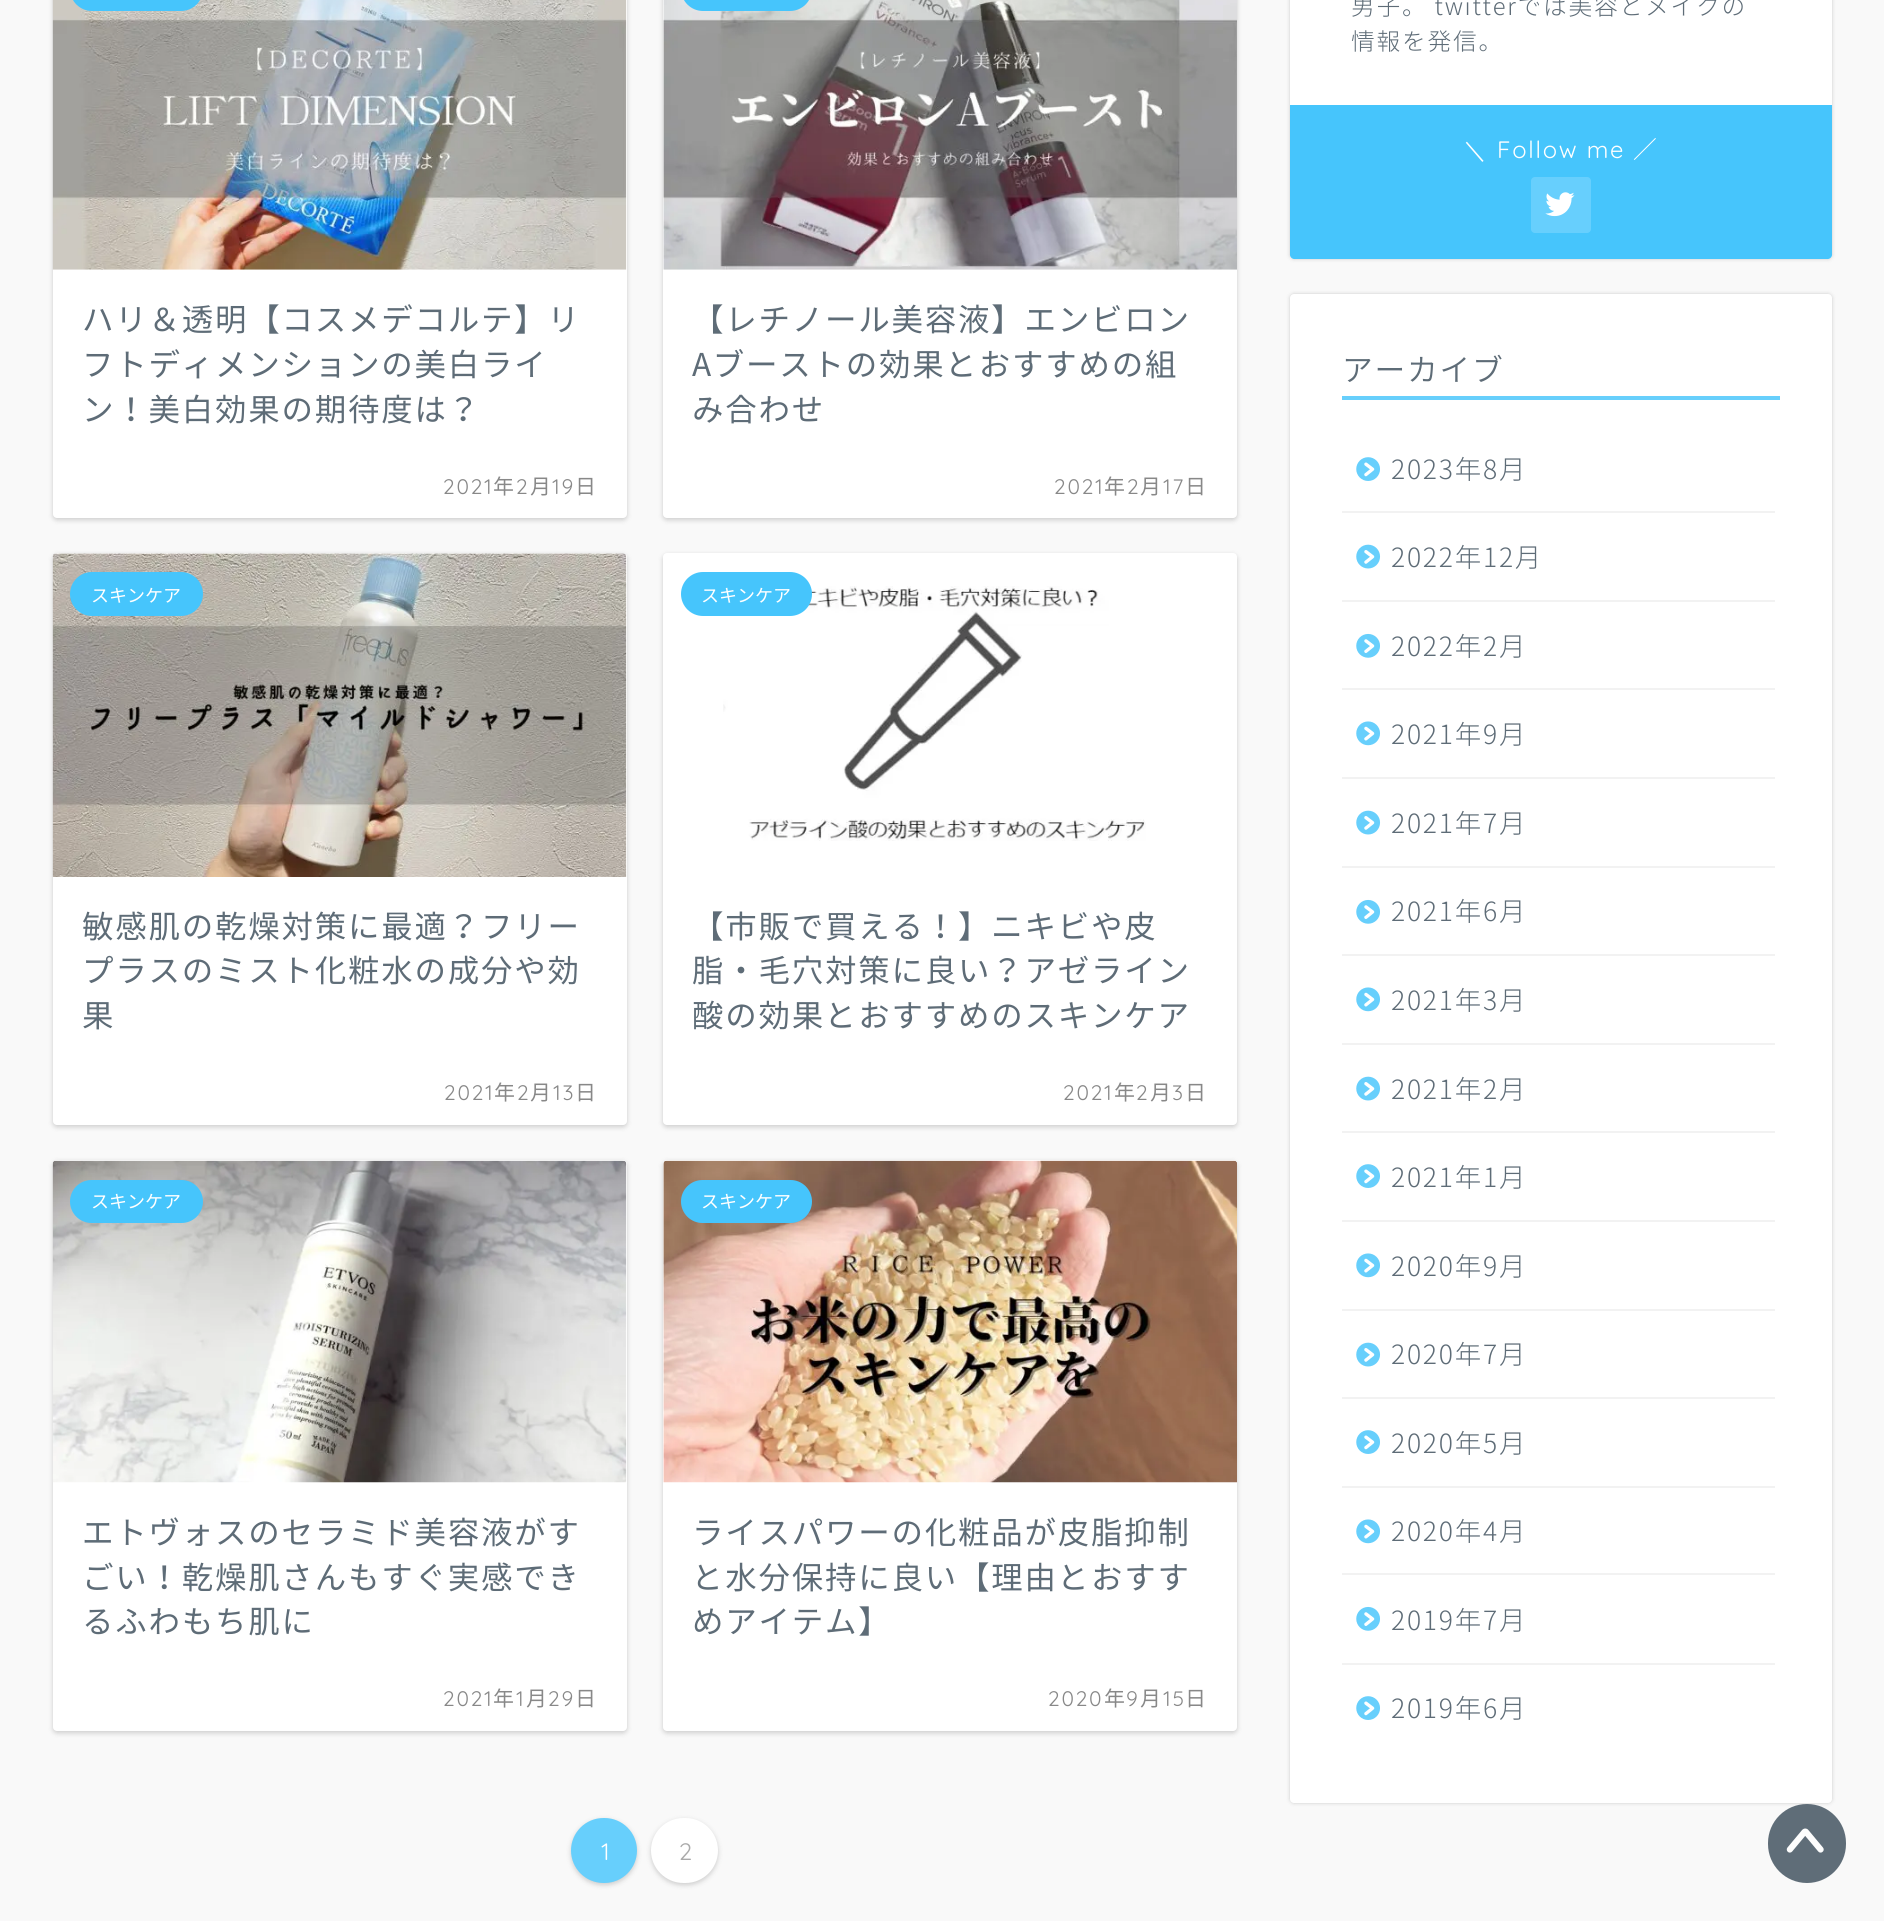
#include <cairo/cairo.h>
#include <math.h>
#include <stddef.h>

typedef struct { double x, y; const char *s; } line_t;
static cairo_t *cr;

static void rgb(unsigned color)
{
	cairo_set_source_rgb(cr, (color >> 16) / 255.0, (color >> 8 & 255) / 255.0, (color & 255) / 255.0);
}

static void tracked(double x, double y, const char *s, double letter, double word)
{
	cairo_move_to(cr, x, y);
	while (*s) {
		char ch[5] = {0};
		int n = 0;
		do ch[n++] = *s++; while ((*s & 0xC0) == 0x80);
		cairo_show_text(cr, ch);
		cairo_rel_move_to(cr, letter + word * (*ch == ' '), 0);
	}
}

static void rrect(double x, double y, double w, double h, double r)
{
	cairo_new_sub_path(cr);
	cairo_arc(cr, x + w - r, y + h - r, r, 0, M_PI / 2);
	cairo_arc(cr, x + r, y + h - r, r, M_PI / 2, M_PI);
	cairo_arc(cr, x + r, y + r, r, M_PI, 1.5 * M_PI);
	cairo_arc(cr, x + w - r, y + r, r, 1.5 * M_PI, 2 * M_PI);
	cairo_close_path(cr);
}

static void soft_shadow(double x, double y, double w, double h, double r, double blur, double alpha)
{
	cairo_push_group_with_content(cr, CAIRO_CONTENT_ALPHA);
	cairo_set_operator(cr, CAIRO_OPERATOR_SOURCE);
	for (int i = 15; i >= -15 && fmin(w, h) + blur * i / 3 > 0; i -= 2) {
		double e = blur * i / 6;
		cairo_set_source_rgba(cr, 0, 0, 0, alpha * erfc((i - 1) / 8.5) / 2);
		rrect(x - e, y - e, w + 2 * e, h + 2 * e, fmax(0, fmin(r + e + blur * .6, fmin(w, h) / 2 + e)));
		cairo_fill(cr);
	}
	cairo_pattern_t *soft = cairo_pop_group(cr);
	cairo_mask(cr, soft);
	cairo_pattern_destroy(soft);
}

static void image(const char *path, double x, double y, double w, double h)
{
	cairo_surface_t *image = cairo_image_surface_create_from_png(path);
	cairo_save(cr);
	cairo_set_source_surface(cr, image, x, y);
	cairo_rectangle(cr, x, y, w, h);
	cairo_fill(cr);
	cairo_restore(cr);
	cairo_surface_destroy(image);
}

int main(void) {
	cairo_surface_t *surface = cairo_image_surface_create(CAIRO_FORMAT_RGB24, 1884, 1921);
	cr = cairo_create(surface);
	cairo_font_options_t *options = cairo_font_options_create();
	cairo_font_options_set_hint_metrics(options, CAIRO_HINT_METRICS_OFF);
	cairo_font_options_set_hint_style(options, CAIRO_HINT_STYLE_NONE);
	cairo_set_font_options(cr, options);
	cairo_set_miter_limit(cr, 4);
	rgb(0xf9f9f9);
	cairo_paint(cr);
	rgb(0x000000);
	soft_shadow(53, -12, 574, 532, 4, 2.5, 0.18);
	rgb(0xffffff);
	rrect(53, -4, 574, 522, 4);
	cairo_fill(cr);
	image("img/1.png", 52, 0, 575, 270);
	rgb(0x46c5fc);
	rrect(70, -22, 133, 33, 22);
	cairo_fill(cr);
	rgb(0x000000);
	soft_shadow(663, -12, 574, 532, 4, 2.5, 0.18);
	rgb(0xffffff);
	rrect(663, -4, 574, 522, 4);
	cairo_fill(cr);
	image("img/2.png", 663, 0, 574, 270);
	rgb(0x46c5fc);
	rrect(681, -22, 131, 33, 22);
	cairo_fill(cr);
	rgb(0x000000);
	soft_shadow(53, 555, 574, 572, 4, 2.5, 0.18);
	rgb(0xffffff);
	rrect(53, 553, 574, 572, 4);
	cairo_fill(cr);
	image("img/3.png", 52, 553, 575, 324);
	rgb(0x46c5fc);
	rrect(70, 572, 133, 44, 22);
	cairo_fill(cr);
	rgb(0x000000);
	soft_shadow(663, 555, 574, 572, 4, 2.5, 0.18);
	rgb(0xffffff);
	rrect(663, 553, 574, 572, 4);
	cairo_fill(cr);
	image("img/4.png", 723, 586, 423, 255);
	rgb(0x46c5fc);
	rrect(681, 572, 131, 44, 22);
	cairo_fill(cr);
	rgb(0x000000);
	soft_shadow(53, 1162, 574, 571, 4, 2.5, 0.18);
	rgb(0xffffff);
	rrect(53, 1160, 574, 571, 4);
	cairo_fill(cr);
	image("img/5.png", 52, 1160, 575, 323);
	rgb(0x46c5fc);
	rrect(70, 1180, 133, 43, 21.5);
	cairo_fill(cr);
	rgb(0x000000);
	soft_shadow(663, 1162, 574, 571, 4, 2.5, 0.18);
	rgb(0xffffff);
	rrect(663, 1160, 574, 571, 4);
	cairo_fill(cr);
	image("img/6.png", 663, 1160, 574, 323);
	rgb(0x46c5fc);
	rrect(681, 1180, 131, 43, 21.5);
	cairo_fill(cr);
	rgb(0x000000);
	soft_shadow(571, 1820, 66, 65, 32.5, 2.5, 0.18);
	rgb(0x67cffc);
	rrect(572, 1819, 64, 63, 31.5);
	cairo_fill_preserve(cr);
	cairo_stroke(cr);
	rgb(0x000000);
	soft_shadow(651, 1820, 67, 65, 32.5, 2.5, 0.18);
	rgb(0xffffff);
	rrect(651, 1818, 67, 65, 32.5);
	cairo_fill(cr);
	rgb(0x000000);
	soft_shadow(1290, -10, 542, 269, 4, 2, 0.18);
	rgb(0xffffff);
	rrect(1290, -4, 542, 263, 4);
	cairo_fill(cr);
	rgb(0x46c5fc);
	cairo_new_path(cr);
	cairo_move_to(cr, 1290, 105);
	cairo_line_to(cr, 1832, 105);
	cairo_line_to(cr, 1832, 255);
	cairo_curve_to(cr, 1832, 257, 1830, 259, 1828, 259);
	cairo_line_to(cr, 1294, 259);
	cairo_curve_to(cr, 1292, 259, 1290, 257, 1290, 255);
	cairo_close_path(cr);
	cairo_fill(cr);
	rgb(0x67cffd);
	rrect(1531, 177, 60, 56, 4);
	cairo_fill(cr);
	image("img/7.png", 1545, 192, 30, 25);
	rgb(0x000000);
	soft_shadow(1290, 294, 542, 1509, 4, 2, 0.18);
	rgb(0xffffff);
	rrect(1290, 294, 542, 1509, 4);
	cairo_fill(cr);
	rgb(0x67cffc);
	cairo_rectangle(cr, 1342, 396, 438, 4);
	cairo_fill(cr);
	rgb(0xf2f2f2);
	cairo_rectangle(cr, 1342, 511, 433, 2);
	cairo_fill(cr);
	image("img/8.png", 1356, 457, 24, 24);
	cairo_rectangle(cr, 1342, 600, 433, 2);
	cairo_fill(cr);
	image("img/9.png", 1356, 544, 25, 25);
	cairo_rectangle(cr, 1342, 688, 433, 2);
	cairo_fill(cr);
	image("img/10.png", 1356, 633, 24, 25);
	cairo_rectangle(cr, 1342, 777, 433, 2);
	cairo_fill(cr);
	image("img/11.png", 1356, 721, 24, 25);
	cairo_rectangle(cr, 1342, 866, 433, 2);
	cairo_fill(cr);
	image("img/9.png", 1356, 810, 25, 25);
	cairo_rectangle(cr, 1342, 954, 433, 2);
	cairo_fill(cr);
	image("img/10.png", 1356, 899, 24, 25);
	cairo_rectangle(cr, 1342, 1043, 433, 2);
	cairo_fill(cr);
	image("img/11.png", 1356, 987, 24, 25);
	cairo_rectangle(cr, 1342, 1131, 433, 2);
	cairo_fill(cr);
	image("img/9.png", 1356, 1076, 25, 25);
	cairo_rectangle(cr, 1342, 1220, 433, 2);
	cairo_fill(cr);
	image("img/8.png", 1356, 1164, 24, 24);
	cairo_rectangle(cr, 1342, 1309, 433, 2);
	cairo_fill(cr);
	image("img/11.png", 1356, 1253, 24, 25);
	cairo_rectangle(cr, 1342, 1397, 433, 2);
	cairo_fill(cr);
	image("img/9.png", 1356, 1342, 25, 25);
	cairo_rectangle(cr, 1342, 1486, 433, 2);
	cairo_fill(cr);
	image("img/8.png", 1356, 1430, 24, 24);
	cairo_rectangle(cr, 1342, 1573, 433, 2);
	cairo_fill(cr);
	image("img/11.png", 1356, 1519, 24, 25);
	cairo_rectangle(cr, 1342, 1663, 433, 2);
	cairo_fill(cr);
	image("img/10.png", 1356, 1606, 24, 25);
	image("img/8.png", 1356, 1696, 24, 24);
	cairo_set_source_rgba(cr, 0.369, 0.424, 0.467, 0.99);
	rrect(1768, 1804, 78, 79, 39);
	cairo_fill(cr);
	image("img/12.png", 1786, 1828, 38, 25);
	cairo_select_font_face(cr, "Noto Sans JP", CAIRO_FONT_SLANT_NORMAL, CAIRO_FONT_WEIGHT_NORMAL);
	cairo_set_font_size(cr, 31.5);
	rgb(0x5e6c77);
	{
		static const line_t items[] = {
			{82, 331, "ハリ＆透明【コスメデコルテ】リ"},
			{82, 376, "フトディメンションの美白ライ"},
			{82, 421, "ン！美白効果の期待度は？"},
		};
		for (size_t i = 0; i < sizeof items / sizeof *items; i++) {
			tracked(items[i].x, items[i].y, items[i].s, 1.75, 0);
		}
	}
	cairo_select_font_face(cr, "Quicksand Light", CAIRO_FONT_SLANT_NORMAL, CAIRO_FONT_WEIGHT_NORMAL);
	cairo_set_font_size(cr, 21);
	rgb(0x888888);
	tracked(443, 494, "2021", 1.75, 0);
	cairo_select_font_face(cr, "Noto Sans JP", CAIRO_FONT_SLANT_NORMAL, CAIRO_FONT_WEIGHT_NORMAL);
	tracked(493, 494, "年", 1.75, 0);
	cairo_select_font_face(cr, "Quicksand Light", CAIRO_FONT_SLANT_NORMAL, CAIRO_FONT_WEIGHT_NORMAL);
	tracked(516, 494, "2", 1.75, 0);
	cairo_select_font_face(cr, "Noto Sans JP", CAIRO_FONT_SLANT_NORMAL, CAIRO_FONT_WEIGHT_NORMAL);
	tracked(530, 494, "月", 1.75, 0);
	cairo_select_font_face(cr, "Quicksand Light", CAIRO_FONT_SLANT_NORMAL, CAIRO_FONT_WEIGHT_NORMAL);
	tracked(552, 494, "19", 1.75, 0);
	cairo_select_font_face(cr, "Noto Sans JP", CAIRO_FONT_SLANT_NORMAL, CAIRO_FONT_WEIGHT_NORMAL);
	tracked(575, 494, "日", 1.75, 0);
	cairo_set_font_size(cr, 31.5);
	rgb(0x5e6c77);
	{
		static const line_t items[] = {
			{692, 331, "【レチノール美容液】エンビロン"},
			{692, 376, "Aブーストの効果とおすすめの組"},
			{692, 421, "み合わせ"},
		};
		for (size_t i = 0; i < sizeof items / sizeof *items; i++) {
			tracked(items[i].x, items[i].y, items[i].s, 1.75, 0);
		}
	}
	cairo_select_font_face(cr, "Quicksand Light", CAIRO_FONT_SLANT_NORMAL, CAIRO_FONT_WEIGHT_NORMAL);
	cairo_set_font_size(cr, 21);
	rgb(0x888888);
	tracked(1054, 494, "2021", 1.75, 0);
	cairo_select_font_face(cr, "Noto Sans JP", CAIRO_FONT_SLANT_NORMAL, CAIRO_FONT_WEIGHT_NORMAL);
	tracked(1104, 494, "年", 1.75, 0);
	cairo_select_font_face(cr, "Quicksand Light", CAIRO_FONT_SLANT_NORMAL, CAIRO_FONT_WEIGHT_NORMAL);
	tracked(1127, 494, "2", 1.75, 0);
	cairo_select_font_face(cr, "Noto Sans JP", CAIRO_FONT_SLANT_NORMAL, CAIRO_FONT_WEIGHT_NORMAL);
	tracked(1140, 494, "月", 1.75, 0);
	cairo_select_font_face(cr, "Quicksand Light", CAIRO_FONT_SLANT_NORMAL, CAIRO_FONT_WEIGHT_NORMAL);
	tracked(1163, 494, "17", 1.75, 0);
	cairo_select_font_face(cr, "Noto Sans JP", CAIRO_FONT_SLANT_NORMAL, CAIRO_FONT_WEIGHT_NORMAL);
	tracked(1185, 494, "日", 1.75, 0);
	cairo_set_font_size(cr, 18);
	rgb(0xffffff);
	cairo_move_to(cr, 91, 602);
	cairo_show_text(cr, "スキンケア");
	cairo_set_font_size(cr, 31.5);
	rgb(0x5e6c77);
	{
		static const line_t items[] = {
			{82, 938, "敏感肌の乾燥対策に最適？フリー"},
			{82, 982, "プラスのミスト化粧水の成分や効"},
			{82, 1027, "果"},
		};
		for (size_t i = 0; i < sizeof items / sizeof *items; i++) {
			tracked(items[i].x, items[i].y, items[i].s, 1.75, 0);
		}
	}
	cairo_select_font_face(cr, "Quicksand Light", CAIRO_FONT_SLANT_NORMAL, CAIRO_FONT_WEIGHT_NORMAL);
	cairo_set_font_size(cr, 21);
	rgb(0x888888);
	tracked(444, 1100, "2021", 1.75, 0);
	cairo_select_font_face(cr, "Noto Sans JP", CAIRO_FONT_SLANT_NORMAL, CAIRO_FONT_WEIGHT_NORMAL);
	tracked(494, 1100, "年", 1.75, 0);
	cairo_select_font_face(cr, "Quicksand Light", CAIRO_FONT_SLANT_NORMAL, CAIRO_FONT_WEIGHT_NORMAL);
	tracked(517, 1100, "2", 1.75, 0);
	cairo_select_font_face(cr, "Noto Sans JP", CAIRO_FONT_SLANT_NORMAL, CAIRO_FONT_WEIGHT_NORMAL);
	tracked(530, 1100, "月", 1.75, 0);
	cairo_select_font_face(cr, "Quicksand Light", CAIRO_FONT_SLANT_NORMAL, CAIRO_FONT_WEIGHT_NORMAL);
	tracked(553, 1100, "13", 1.75, 0);
	cairo_select_font_face(cr, "Noto Sans JP", CAIRO_FONT_SLANT_NORMAL, CAIRO_FONT_WEIGHT_NORMAL);
	tracked(575, 1100, "日", 1.75, 0);
	cairo_set_font_size(cr, 18);
	rgb(0xffffff);
	cairo_move_to(cr, 701, 602);
	cairo_show_text(cr, "スキンケア");
	cairo_set_font_size(cr, 31.5);
	rgb(0x5e6c77);
	{
		static const line_t items[] = {
			{692, 938, "【市販で買える！】ニキビや皮"},
			{692, 982, "脂・毛穴対策に良い？アゼライン"},
			{692, 1027, "酸の効果とおすすめのスキンケア"},
		};
		for (size_t i = 0; i < sizeof items / sizeof *items; i++) {
			tracked(items[i].x, items[i].y, items[i].s, 1.75, 0);
		}
	}
	cairo_select_font_face(cr, "Quicksand Light", CAIRO_FONT_SLANT_NORMAL, CAIRO_FONT_WEIGHT_NORMAL);
	cairo_set_font_size(cr, 21);
	rgb(0x888888);
	tracked(1063, 1100, "2021", 1.75, 0);
	cairo_select_font_face(cr, "Noto Sans JP", CAIRO_FONT_SLANT_NORMAL, CAIRO_FONT_WEIGHT_NORMAL);
	tracked(1114, 1100, "年", 1.75, 0);
	cairo_select_font_face(cr, "Quicksand Light", CAIRO_FONT_SLANT_NORMAL, CAIRO_FONT_WEIGHT_NORMAL);
	tracked(1136, 1100, "2", 1.75, 0);
	cairo_select_font_face(cr, "Noto Sans JP", CAIRO_FONT_SLANT_NORMAL, CAIRO_FONT_WEIGHT_NORMAL);
	tracked(1150, 1100, "月", 1.75, 0);
	cairo_select_font_face(cr, "Quicksand Light", CAIRO_FONT_SLANT_NORMAL, CAIRO_FONT_WEIGHT_NORMAL);
	tracked(1172, 1100, "3", 1.75, 0);
	cairo_select_font_face(cr, "Noto Sans JP", CAIRO_FONT_SLANT_NORMAL, CAIRO_FONT_WEIGHT_NORMAL);
	tracked(1185, 1100, "日", 1.75, 0);
	cairo_set_font_size(cr, 18);
	rgb(0xffffff);
	cairo_move_to(cr, 91, 1208);
	cairo_show_text(cr, "スキンケア");
	cairo_set_font_size(cr, 31.5);
	rgb(0x5e6c77);
	{
		static const line_t items[] = {
			{82, 1544, "エトヴォスのセラミド美容液がす"},
			{82, 1589, "ごい！乾燥肌さんもすぐ実感でき"},
			{82, 1633, "るふわもち肌に"},
		};
		for (size_t i = 0; i < sizeof items / sizeof *items; i++) {
			tracked(items[i].x, items[i].y, items[i].s, 1.75, 0);
		}
	}
	cairo_select_font_face(cr, "Quicksand Light", CAIRO_FONT_SLANT_NORMAL, CAIRO_FONT_WEIGHT_NORMAL);
	cairo_set_font_size(cr, 21);
	rgb(0x888888);
	tracked(443, 1706, "2021", 1.75, 0);
	cairo_select_font_face(cr, "Noto Sans JP", CAIRO_FONT_SLANT_NORMAL, CAIRO_FONT_WEIGHT_NORMAL);
	tracked(493, 1706, "年", 1.75, 0);
	cairo_select_font_face(cr, "Quicksand Light", CAIRO_FONT_SLANT_NORMAL, CAIRO_FONT_WEIGHT_NORMAL);
	tracked(516, 1706, "1", 1.75, 0);
	cairo_select_font_face(cr, "Noto Sans JP", CAIRO_FONT_SLANT_NORMAL, CAIRO_FONT_WEIGHT_NORMAL);
	tracked(526, 1706, "月", 1.75, 0);
	cairo_select_font_face(cr, "Quicksand Light", CAIRO_FONT_SLANT_NORMAL, CAIRO_FONT_WEIGHT_NORMAL);
	tracked(548, 1706, "29", 1.75, 0);
	cairo_select_font_face(cr, "Noto Sans JP", CAIRO_FONT_SLANT_NORMAL, CAIRO_FONT_WEIGHT_NORMAL);
	tracked(575, 1706, "日", 1.75, 0);
	cairo_set_font_size(cr, 18);
	rgb(0xffffff);
	cairo_move_to(cr, 701, 1208);
	cairo_show_text(cr, "スキンケア");
	cairo_set_font_size(cr, 31.5);
	rgb(0x5e6c77);
	{
		static const line_t items[] = {
			{692, 1544, "ライスパワーの化粧品が皮脂抑制"},
			{692, 1589, "と水分保持に良い【理由とおすす"},
			{692, 1633, "めアイテム】"},
		};
		for (size_t i = 0; i < sizeof items / sizeof *items; i++) {
			tracked(items[i].x, items[i].y, items[i].s, 1.75, 0);
		}
	}
	cairo_select_font_face(cr, "Quicksand Light", CAIRO_FONT_SLANT_NORMAL, CAIRO_FONT_WEIGHT_NORMAL);
	cairo_set_font_size(cr, 21);
	rgb(0x888888);
	tracked(1048, 1706, "2020", 1.75, 0);
	cairo_select_font_face(cr, "Noto Sans JP", CAIRO_FONT_SLANT_NORMAL, CAIRO_FONT_WEIGHT_NORMAL);
	tracked(1104, 1706, "年", 1.75, 0);
	cairo_select_font_face(cr, "Quicksand Light", CAIRO_FONT_SLANT_NORMAL, CAIRO_FONT_WEIGHT_NORMAL);
	tracked(1126, 1706, "9", 1.75, 0);
	cairo_select_font_face(cr, "Noto Sans JP", CAIRO_FONT_SLANT_NORMAL, CAIRO_FONT_WEIGHT_NORMAL);
	tracked(1140, 1706, "月", 1.75, 0);
	cairo_select_font_face(cr, "Quicksand Light", CAIRO_FONT_SLANT_NORMAL, CAIRO_FONT_WEIGHT_NORMAL);
	tracked(1163, 1706, "15", 1.75, 0);
	cairo_select_font_face(cr, "Noto Sans JP", CAIRO_FONT_SLANT_NORMAL, CAIRO_FONT_WEIGHT_NORMAL);
	tracked(1185, 1706, "日", 1.75, 0);
	cairo_select_font_face(cr, "Quicksand Light", CAIRO_FONT_SLANT_NORMAL, CAIRO_FONT_WEIGHT_NORMAL);
	cairo_set_font_size(cr, 23.75);
	rgb(0xffffff);
	tracked(601, 1860, "1", 1.75, 0);
	rgb(0xaaaaaa);
	tracked(679, 1860, "2", 1.75, 0);
	cairo_select_font_face(cr, "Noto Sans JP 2 Light", CAIRO_FONT_SLANT_NORMAL, CAIRO_FONT_WEIGHT_NORMAL);
	rgb(0x5e6c77);
	tracked(1351, 15, "男子。 twitterでは美容とメイクの", 1.75, 0);
	tracked(1351, 50, "情報を発信。", 1.75, 0);
	cairo_select_font_face(cr, "WenQuanYi Zen Hei Medium", CAIRO_FONT_SLANT_NORMAL, CAIRO_FONT_WEIGHT_NORMAL);
	rgb(0xffffff);
	tracked(1463, 158, "＼", 1.75, 0);
	cairo_select_font_face(cr, "Quicksand Light", CAIRO_FONT_SLANT_NORMAL, CAIRO_FONT_WEIGHT_NORMAL);
	tracked(1497, 158, "Follow me", 1.75, 0);
	cairo_select_font_face(cr, "Noto Sans JP", CAIRO_FONT_SLANT_NORMAL, CAIRO_FONT_WEIGHT_NORMAL);
	tracked(1633, 158, "／", 1.75, 0);
	cairo_select_font_face(cr, "Noto Sans JP Light", CAIRO_FONT_SLANT_NORMAL, CAIRO_FONT_WEIGHT_NORMAL);
	cairo_set_font_size(cr, 30.75);
	rgb(0x5e6c77);
	tracked(1342, 381, "アーカイブ", 1.75, 0);
	cairo_select_font_face(cr, "Noto Sans JP 2 Light", CAIRO_FONT_SLANT_NORMAL, CAIRO_FONT_WEIGHT_NORMAL);
	cairo_set_font_size(cr, 26.5);
	{
		static const line_t items[] = {
			{1391, 479, "2023年8月"},
			{1391, 567, "2022年12月"},
			{1391, 656, "2022年2月"},
			{1391, 744, "2021年9月"},
			{1391, 833, "2021年7月"},
			{1391, 921, "2021年6月"},
			{1391, 1010, "2021年3月"},
			{1391, 1099, "2021年2月"},
			{1391, 1187, "2021年1月"},
			{1391, 1276, "2020年9月"},
			{1391, 1364, "2020年7月"},
			{1391, 1453, "2020年5月"},
			{1391, 1541, "2020年4月"},
			{1391, 1630, "2019年7月"},
			{1391, 1718, "2019年6月"},
		};
		for (size_t i = 0; i < sizeof items / sizeof *items; i++) {
			tracked(items[i].x, items[i].y, items[i].s, 1.75, 0);
		}
	}
	cairo_surface_write_to_png(surface, "page.png");
	cairo_font_options_destroy(options);
	cairo_destroy(cr);
	cairo_surface_destroy(surface);
	return 0;
}
